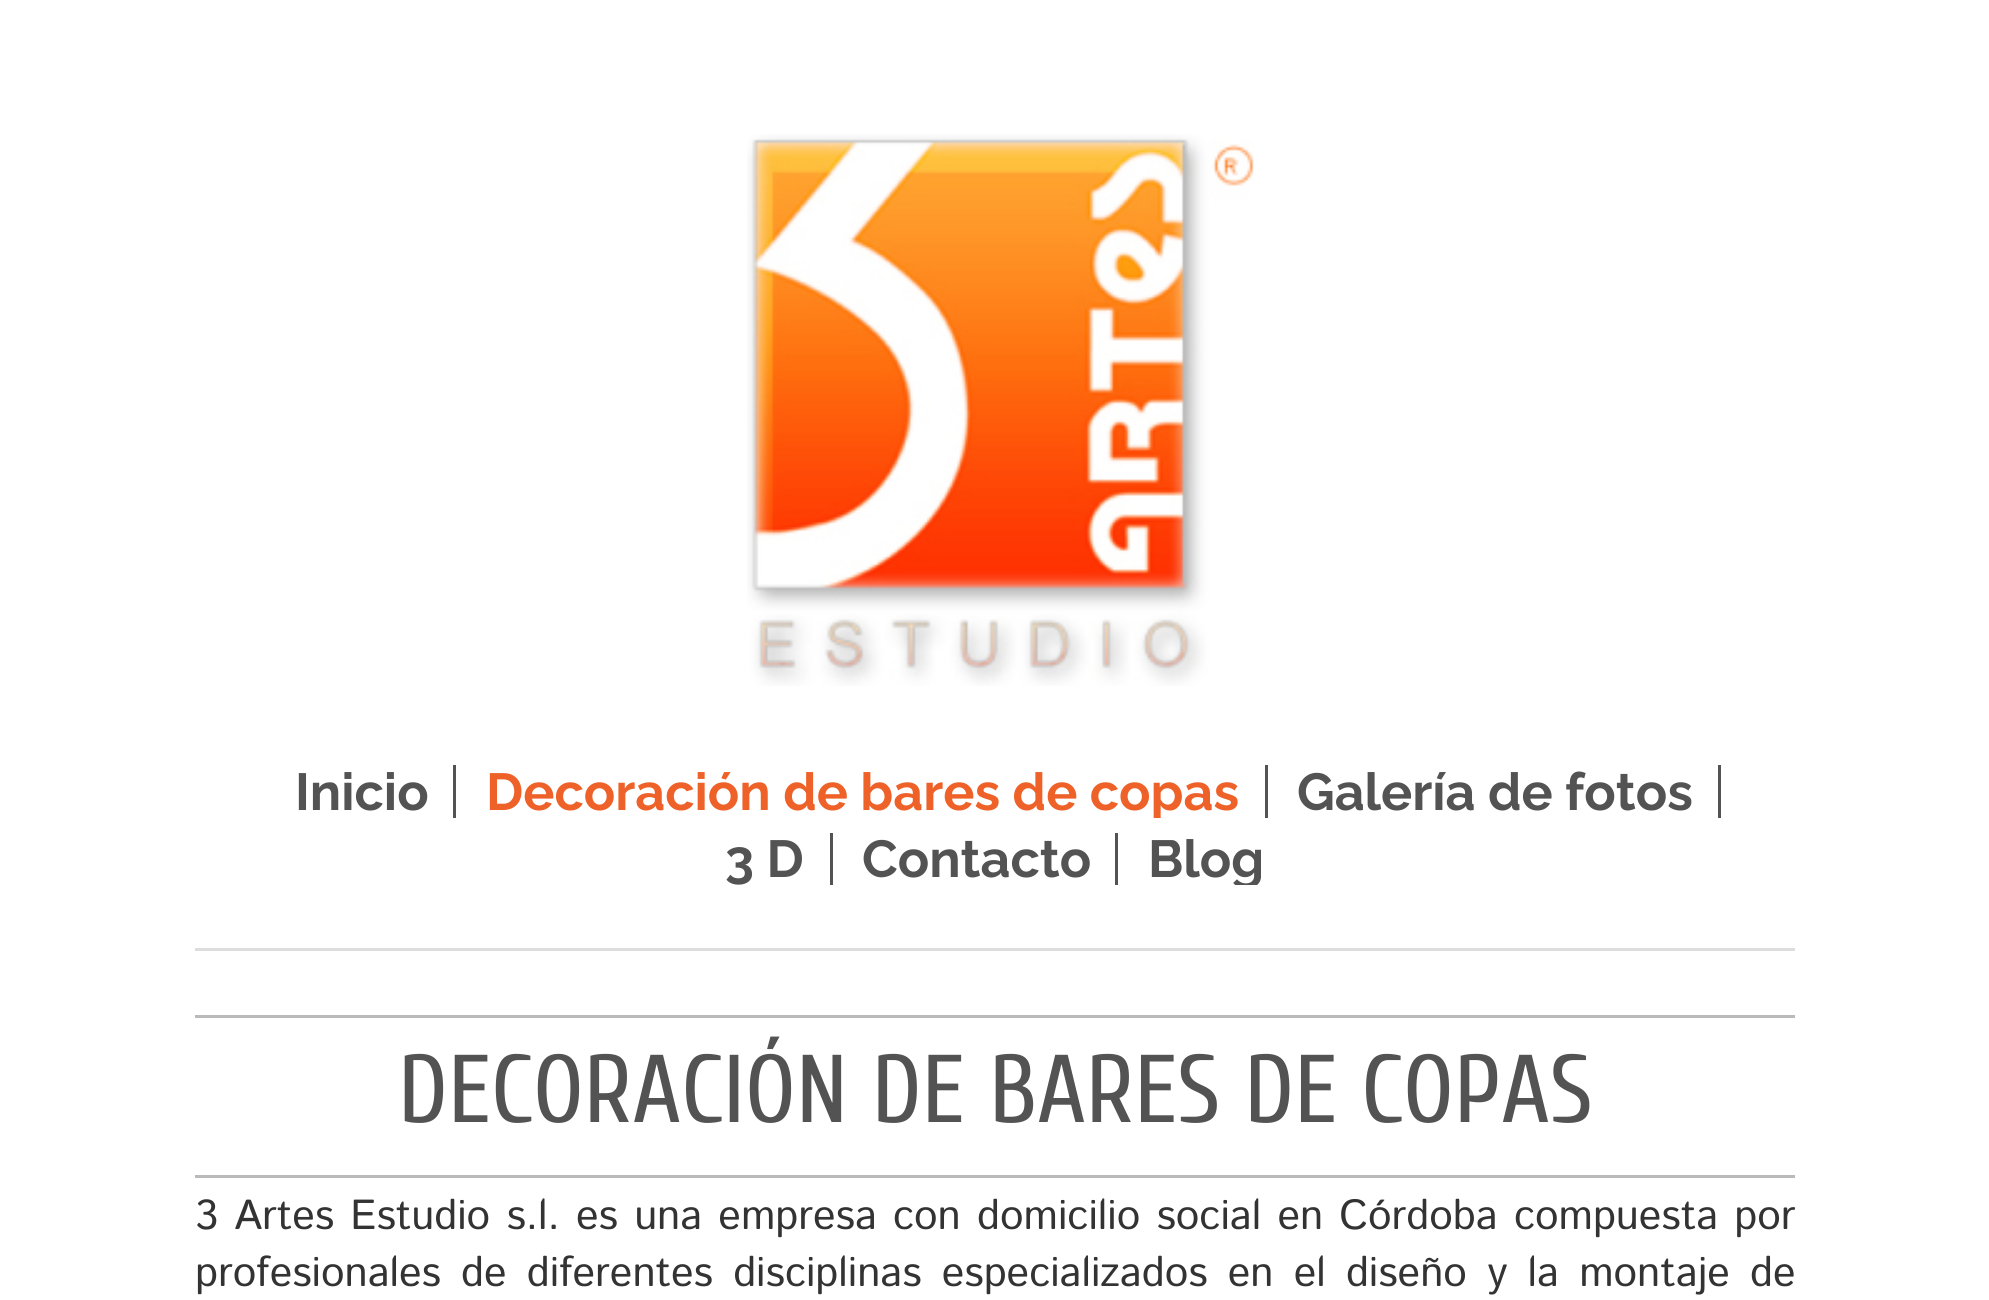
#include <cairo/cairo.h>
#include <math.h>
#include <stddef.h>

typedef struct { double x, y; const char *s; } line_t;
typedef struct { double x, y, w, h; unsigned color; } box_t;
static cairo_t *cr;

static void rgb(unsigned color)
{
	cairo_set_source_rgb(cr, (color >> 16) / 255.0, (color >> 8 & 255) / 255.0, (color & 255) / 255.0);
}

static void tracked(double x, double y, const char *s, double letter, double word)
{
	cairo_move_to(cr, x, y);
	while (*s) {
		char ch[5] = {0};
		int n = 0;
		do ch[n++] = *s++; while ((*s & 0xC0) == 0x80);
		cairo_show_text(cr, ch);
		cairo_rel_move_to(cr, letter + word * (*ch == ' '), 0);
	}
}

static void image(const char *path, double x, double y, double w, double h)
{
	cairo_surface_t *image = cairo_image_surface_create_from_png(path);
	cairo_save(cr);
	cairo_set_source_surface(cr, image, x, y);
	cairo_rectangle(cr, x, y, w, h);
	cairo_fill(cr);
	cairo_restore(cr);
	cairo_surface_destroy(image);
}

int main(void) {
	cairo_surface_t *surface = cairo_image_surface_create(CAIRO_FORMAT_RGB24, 1989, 1300);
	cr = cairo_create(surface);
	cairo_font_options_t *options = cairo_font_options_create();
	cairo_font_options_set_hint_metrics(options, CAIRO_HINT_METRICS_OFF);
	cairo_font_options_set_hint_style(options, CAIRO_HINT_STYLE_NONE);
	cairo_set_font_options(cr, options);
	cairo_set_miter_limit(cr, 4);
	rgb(0xffffff);
	cairo_paint(cr);
	image("img/1.png", 747, 134, 507, 552);
	{
		static const box_t items[] = {
			{195, 948, 1600, 3, 0xdddddd},
			{453, 765, 3, 53, 0x535353},
			{1265, 765, 3, 53, 0x535353},
			{1718, 765, 3, 53, 0x535353},
			{830, 833, 3, 52, 0x535353},
			{1115, 833, 3, 52, 0x535353},
			{195, 1015, 1600, 3, 0xbababa},
			{195, 1175, 1600, 3, 0xbababa},
		};
		for (size_t i = 0; i < sizeof items / sizeof *items; i++) {
			rgb(items[i].color);
			cairo_rectangle(cr, items[i].x, items[i].y, items[i].w, items[i].h);
			cairo_fill(cr);
		}
	}
	cairo_select_font_face(cr, "Raleway", CAIRO_FONT_SLANT_NORMAL, CAIRO_FONT_WEIGHT_BOLD);
	cairo_set_font_size(cr, 52);
	rgb(0x535353);
	cairo_move_to(cr, 295, 810);
	cairo_show_text(cr, "Inicio");
	cairo_save(cr);
	cairo_rectangle(cr, 460, 765, 805, 53);
	cairo_clip(cr);
	rgb(0xee6229);
	cairo_move_to(cr, 486, 810);
	cairo_show_text(cr, "Decoración de bares de copas");
	cairo_restore(cr);
	{
		static const line_t items[] = {
			{1297, 810, "Galería de fotos"},
			{725, 877, "3 D"},
			{862, 877, "Contacto"},
		};
		for (size_t i = 0; i < sizeof items / sizeof *items; i++) {
			cairo_move_to(cr, items[i].x, items[i].y);
			cairo_show_text(cr, items[i].s);
		}
	}
	cairo_save(cr);
	cairo_rectangle(cr, 1123, 833, 167, 52);
	cairo_clip(cr);
	cairo_move_to(cr, 1148, 877);
	cairo_show_text(cr, "Blog");
	cairo_restore(cr);
	cairo_select_font_face(cr, "Cuprum", CAIRO_FONT_SLANT_NORMAL, CAIRO_FONT_WEIGHT_NORMAL);
	cairo_set_font_size(cr, 96);
	cairo_move_to(cr, 398, 1122);
	cairo_show_text(cr, "DECORACIÓN DE BARES DE COPAS");
	cairo_select_font_face(cr, "Istok Web", CAIRO_FONT_SLANT_NORMAL, CAIRO_FONT_WEIGHT_NORMAL);
	cairo_set_font_size(cr, 42);
	rgb(0x333333);
	tracked(195, 1229, "3 Artes Estudio s.l. es una empresa con domicilio social en Córdoba compuesta por", 0, 2.25);
	tracked(195, 1286, "profesionales de diferentes disciplinas especializados en el diseño y la montaje de", 0, 6.25);
	cairo_surface_write_to_png(surface, "page.png");
	cairo_font_options_destroy(options);
	cairo_destroy(cr);
	cairo_surface_destroy(surface);
	return 0;
}
